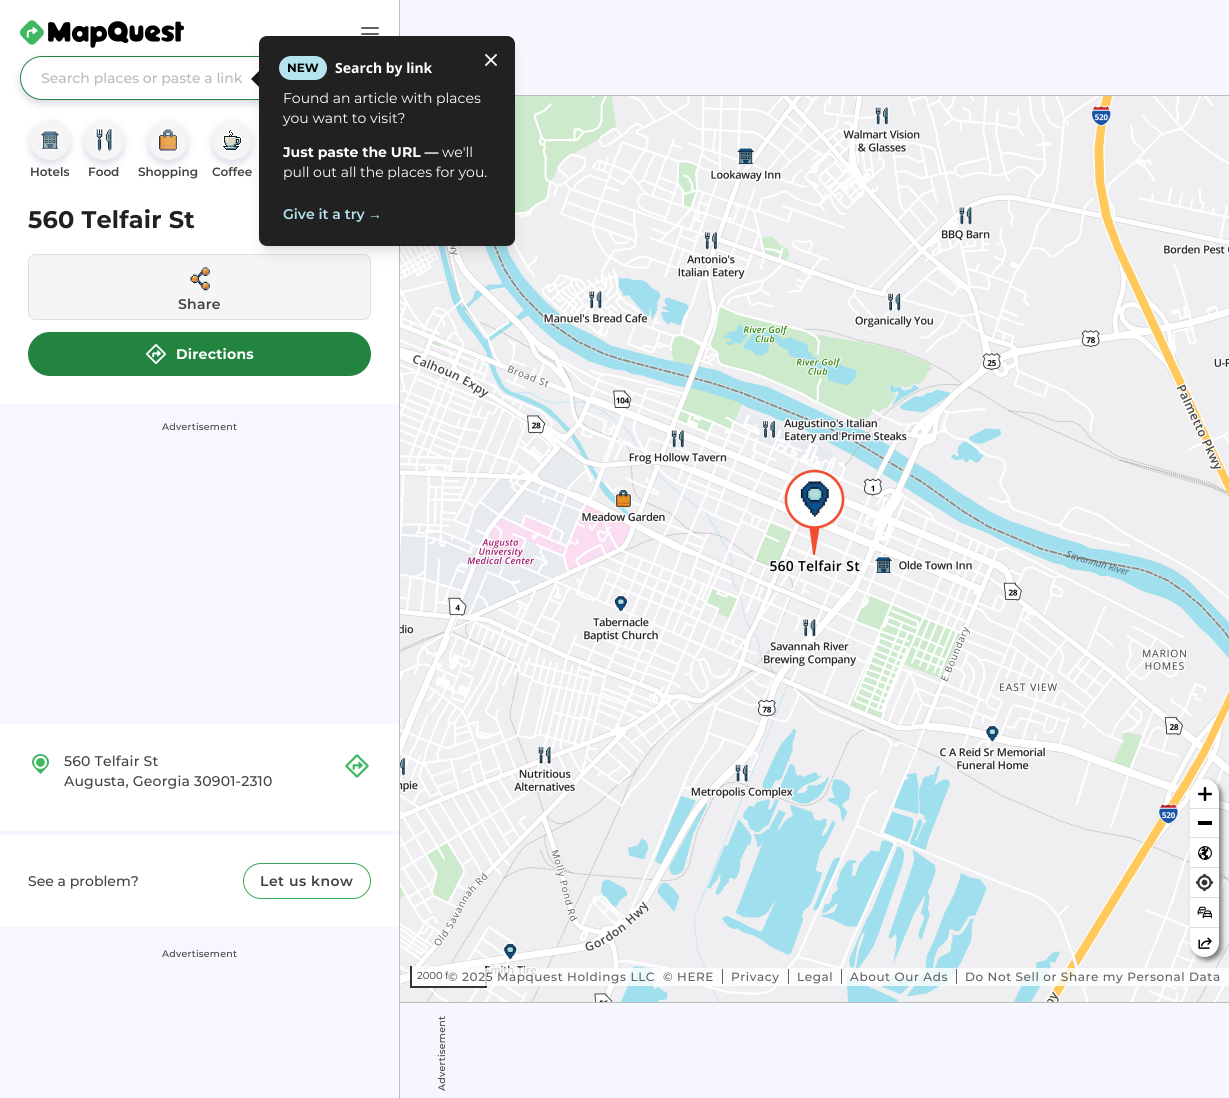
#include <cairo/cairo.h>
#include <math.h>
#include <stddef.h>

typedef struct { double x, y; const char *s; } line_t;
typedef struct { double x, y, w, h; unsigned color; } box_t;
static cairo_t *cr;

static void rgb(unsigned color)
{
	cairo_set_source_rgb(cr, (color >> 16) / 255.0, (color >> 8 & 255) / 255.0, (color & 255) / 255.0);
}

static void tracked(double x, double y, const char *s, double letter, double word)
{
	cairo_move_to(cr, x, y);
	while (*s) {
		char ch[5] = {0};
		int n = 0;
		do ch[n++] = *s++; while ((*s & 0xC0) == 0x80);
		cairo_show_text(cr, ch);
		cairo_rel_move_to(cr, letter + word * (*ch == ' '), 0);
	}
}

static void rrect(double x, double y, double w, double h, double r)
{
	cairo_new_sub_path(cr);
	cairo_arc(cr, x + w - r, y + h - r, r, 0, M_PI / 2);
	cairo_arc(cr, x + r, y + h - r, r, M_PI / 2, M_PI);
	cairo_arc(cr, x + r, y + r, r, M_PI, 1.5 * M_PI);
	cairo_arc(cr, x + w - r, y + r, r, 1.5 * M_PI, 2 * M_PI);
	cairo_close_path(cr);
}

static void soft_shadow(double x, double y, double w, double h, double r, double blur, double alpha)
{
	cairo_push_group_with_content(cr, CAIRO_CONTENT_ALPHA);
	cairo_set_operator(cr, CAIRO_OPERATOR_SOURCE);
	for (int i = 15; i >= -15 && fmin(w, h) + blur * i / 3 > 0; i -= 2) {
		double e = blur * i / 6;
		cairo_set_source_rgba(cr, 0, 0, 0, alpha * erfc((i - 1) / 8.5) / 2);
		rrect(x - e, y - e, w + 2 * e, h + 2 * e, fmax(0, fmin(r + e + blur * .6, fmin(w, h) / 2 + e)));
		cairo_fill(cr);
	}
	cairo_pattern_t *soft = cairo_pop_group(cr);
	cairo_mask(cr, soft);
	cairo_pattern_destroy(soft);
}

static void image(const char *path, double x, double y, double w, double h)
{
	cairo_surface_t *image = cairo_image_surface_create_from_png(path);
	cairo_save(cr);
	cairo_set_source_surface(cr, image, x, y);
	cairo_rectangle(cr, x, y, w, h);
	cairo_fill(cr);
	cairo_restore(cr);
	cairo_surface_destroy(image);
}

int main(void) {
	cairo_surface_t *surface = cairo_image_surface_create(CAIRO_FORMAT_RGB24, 1229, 1098);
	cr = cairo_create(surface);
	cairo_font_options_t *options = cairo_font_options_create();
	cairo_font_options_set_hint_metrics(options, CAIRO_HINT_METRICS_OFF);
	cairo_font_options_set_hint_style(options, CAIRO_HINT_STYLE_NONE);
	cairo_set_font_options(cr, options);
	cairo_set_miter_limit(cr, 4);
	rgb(0xffffff);
	cairo_paint(cr);
	{
		static const box_t items[] = {
			{400, 0, 829, 95, 0xf6f6ff},
			{515, 95, 714, 1, 0xbdbdbd},
			{399, 0, 1, 1098, 0xbdbdbd},
		};
		for (size_t i = 0; i < sizeof items / sizeof *items; i++) {
			rgb(items[i].color);
			cairo_rectangle(cr, items[i].x, items[i].y, items[i].w, items[i].h);
			cairo_fill(cr);
		}
	}
	image("img/1.png", 20, 20, 164, 28);
	image("img/2.png", 361, 27, 18, 8);
	rgb(0x0d1660);
	soft_shadow(20, 60, 359, 44, 22, 4, 0.15);
	rgb(0xffffff);
	rrect(20.5, 56.5, 358, 43, 21.5);
	cairo_fill_preserve(cr);
	rgb(0x238440);
	cairo_set_line_width(cr, 1);
	cairo_stroke(cr);
	rgb(0xf5f5f5);
	rrect(28.5, 254.5, 342, 65, 7.5);
	cairo_fill_preserve(cr);
	rgb(0xe0e0e0);
	cairo_stroke(cr);
	image("img/12.png", 400, 96, 829, 906);
	rgb(0x000000);
	soft_shadow(263, 44, 248, 202, 4, 3, 0.1);
	rgb(0x0d1660);
	soft_shadow(212, 124, 40, 40, 20, 4, 0.15);
	rgb(0xf5f5f5);
	cairo_arc(cr, 232, 140, 20, 0, 2 * M_PI);
	cairo_fill(cr);
	image("img/7.png", 222, 129, 20, 22);
	rgb(0x000000);
	soft_shadow(262, 49, 250, 204, 5, 7.5, 0.1);
	rgb(0x212121);
	rrect(259, 36, 256, 210, 8);
	cairo_fill(cr);
	image("img/3.png", 485, 54, 12, 12);
	rgb(0x171717);
	cairo_new_path(cr);
	cairo_move_to(cr, 259, 71);
	cairo_line_to(cr, 259, 87);
	cairo_line_to(cr, 251, 79);
	cairo_close_path(cr);
	cairo_fill(cr);
	rgb(0xb4e4ee);
	rrect(279, 56, 48, 24, 12);
	cairo_fill(cr);
	rgb(0x0d1660);
	soft_shadow(30, 124, 40, 40, 20, 4, 0.15);
	rgb(0xf5f5f5);
	cairo_arc(cr, 50, 140, 20, 0, 2 * M_PI);
	cairo_fill(cr);
	image("img/4.png", 40, 130, 20, 20);
	rgb(0x0d1660);
	soft_shadow(84, 124, 40, 40, 20, 4, 0.15);
	rgb(0xf5f5f5);
	cairo_arc(cr, 104, 140, 20, 0, 2 * M_PI);
	cairo_fill(cr);
	image("img/5.png", 95, 128, 18, 24);
	rgb(0x0d1660);
	soft_shadow(148, 124, 40, 40, 20, 4, 0.15);
	rgb(0xf5f5f5);
	cairo_arc(cr, 168, 140, 20, 0, 2 * M_PI);
	cairo_fill(cr);
	image("img/6.png", 158, 128, 20, 24);
	image("img/8.png", 190, 267, 20, 24);
	rgb(0x238440);
	rrect(28, 332, 343, 44, 22);
	cairo_fill(cr);
	image("img/9.png", 146, 344, 20, 20);
	rgb(0xf7f7ff);
	cairo_rectangle(cr, 0, 404, 399, 320);
	cairo_fill(cr);
	cairo_rectangle(cr, 0, 831, 399, 4);
	cairo_fill(cr);
	image("img/10.png", 32, 754, 17, 20);
	image("img/11.png", 345, 754, 24, 24);
	cairo_rectangle(cr, 0, 927, 399, 171);
	cairo_fill(cr);
	rrect(243.5, 863.5, 127, 35, 17.5);
	rgb(0x37a857);
	cairo_stroke(cr);
	rgb(0x000000);
	soft_shadow(1193, 782, 29, 178, 14.5, 2.5, 0.5);
	rgb(0xffffff);
	rrect(1190, 779, 29, 178, 14.5);
	cairo_fill(cr);
	rgb(0xdddddd);
	cairo_rectangle(cr, 1190, 837, 29, 1);
	cairo_fill(cr);
	image("img/13.png", 1198, 787, 14, 14);
	{
		static const box_t items[] = {
			{1190, 808, 29, 1, 0xdddddd},
			{1198, 821, 14, 4, 0x000000},
			{1190, 867, 29, 1, 0xdddddd},
		};
		for (size_t i = 0; i < sizeof items / sizeof *items; i++) {
			rgb(items[i].color);
			cairo_rectangle(cr, items[i].x, items[i].y, items[i].w, items[i].h);
			cairo_fill(cr);
		}
	}
	image("img/14.png", 1198, 846, 14, 14);
	cairo_rectangle(cr, 1190, 897, 29, 1);
	cairo_fill(cr);
	image("img/15.png", 1195, 873, 19, 19);
	cairo_rectangle(cr, 1190, 927, 29, 1);
	cairo_fill(cr);
	image("img/16.png", 1197, 906, 15, 13);
	image("img/17.png", 1198, 937, 14, 12);
	cairo_set_source_rgba(cr, 1, 1, 1, 0.75);
	cairo_rectangle(cr, 412, 966, 73, 20);
	cairo_fill(cr);
	rgb(0x333333);
	cairo_rectangle(cr, 485, 966, 2, 22);
	cairo_fill(cr);
	cairo_rectangle(cr, 410, 986, 77, 2);
	cairo_fill(cr);
	cairo_rectangle(cr, 410, 966, 2, 22);
	cairo_fill(cr);
	rgb(0xf6f6ff);
	cairo_rectangle(cr, 400, 1003, 829, 95);
	cairo_fill(cr);
	rgb(0xbdbdbd);
	cairo_rectangle(cr, 400, 1002, 829, 1);
	cairo_fill(cr);
	cairo_select_font_face(cr, "Montserrat Medium", CAIRO_FONT_SLANT_NORMAL, CAIRO_FONT_WEIGHT_NORMAL);
	cairo_set_font_size(cr, 14);
	rgb(0xbababa);
	cairo_move_to(cr, 41, 83);
	cairo_show_text(cr, "Search places or paste a link");
	cairo_select_font_face(cr, "Montserrat", CAIRO_FONT_SLANT_NORMAL, CAIRO_FONT_WEIGHT_BOLD);
	cairo_set_font_size(cr, 12);
	rgb(0x000000);
	cairo_move_to(cr, 287, 72);
	cairo_show_text(cr, "NEW");
	cairo_select_font_face(cr, "Noto Sans", CAIRO_FONT_SLANT_NORMAL, CAIRO_FONT_WEIGHT_BOLD);
	cairo_set_font_size(cr, 14);
	rgb(0xffffff);
	cairo_move_to(cr, 335, 73);
	cairo_show_text(cr, "Search by link");
	cairo_select_font_face(cr, "Montserrat", CAIRO_FONT_SLANT_NORMAL, CAIRO_FONT_WEIGHT_NORMAL);
	cairo_move_to(cr, 283, 103);
	cairo_show_text(cr, "Found an article with places");
	cairo_move_to(cr, 283, 123);
	cairo_show_text(cr, "you want to visit?");
	cairo_select_font_face(cr, "Montserrat", CAIRO_FONT_SLANT_NORMAL, CAIRO_FONT_WEIGHT_BOLD);
	cairo_move_to(cr, 283, 157);
	cairo_show_text(cr, "Just paste the URL —");
	cairo_select_font_face(cr, "Montserrat", CAIRO_FONT_SLANT_NORMAL, CAIRO_FONT_WEIGHT_NORMAL);
	cairo_move_to(cr, 442, 157);
	cairo_show_text(cr, "we'll");
	cairo_move_to(cr, 283, 177);
	cairo_show_text(cr, "pull out all the places for you.");
	cairo_select_font_face(cr, "Montserrat SemiBold", CAIRO_FONT_SLANT_NORMAL, CAIRO_FONT_WEIGHT_NORMAL);
	rgb(0xb4e4ee);
	cairo_move_to(cr, 283, 219);
	cairo_show_text(cr, "Give it a try");
	cairo_select_font_face(cr, "Liberation Serif", CAIRO_FONT_SLANT_NORMAL, CAIRO_FONT_WEIGHT_BOLD);
	cairo_move_to(cr, 368, 219);
	cairo_show_text(cr, "→");
	cairo_select_font_face(cr, "Montserrat SemiBold", CAIRO_FONT_SLANT_NORMAL, CAIRO_FONT_WEIGHT_NORMAL);
	cairo_set_font_size(cr, 12);
	rgb(0x424242);
	{
		static const line_t items[] = {
			{30, 176, "Hotels"},
			{88, 176, "Food"},
			{138, 176, "Shopping"},
			{212, 176, "Coffee"},
		};
		for (size_t i = 0; i < sizeof items / sizeof *items; i++) {
			cairo_move_to(cr, items[i].x, items[i].y);
			cairo_show_text(cr, items[i].s);
		}
	}
	cairo_select_font_face(cr, "Montserrat", CAIRO_FONT_SLANT_NORMAL, CAIRO_FONT_WEIGHT_BOLD);
	cairo_set_font_size(cr, 24);
	rgb(0x212121);
	tracked(28, 228, "560 Telfair St", 0.2, 0);
	cairo_select_font_face(cr, "Montserrat SemiBold", CAIRO_FONT_SLANT_NORMAL, CAIRO_FONT_WEIGHT_NORMAL);
	cairo_set_font_size(cr, 14);
	rgb(0x424242);
	tracked(178, 309, "Share", 0.25, 0);
	cairo_select_font_face(cr, "Montserrat", CAIRO_FONT_SLANT_NORMAL, CAIRO_FONT_WEIGHT_BOLD);
	rgb(0xffffff);
	tracked(176, 359, "Directions", 0.25, 0);
	cairo_select_font_face(cr, "Montserrat Medium", CAIRO_FONT_SLANT_NORMAL, CAIRO_FONT_WEIGHT_NORMAL);
	cairo_set_font_size(cr, 9.5);
	rgb(0x424242);
	tracked(162, 430, "Advertisement", 0.25, 0);
	cairo_set_font_size(cr, 14);
	tracked(64, 766, "560 Telfair St", 0.2, 0);
	tracked(64, 786, "Augusta, Georgia 30901-2310", 0.2, 0);
	cairo_move_to(cr, 28, 886);
	cairo_show_text(cr, "See a problem?");
	cairo_select_font_face(cr, "Montserrat SemiBold", CAIRO_FONT_SLANT_NORMAL, CAIRO_FONT_WEIGHT_NORMAL);
	tracked(260, 886, "Let us know", 0.5, 0);
	cairo_select_font_face(cr, "Montserrat Medium", CAIRO_FONT_SLANT_NORMAL, CAIRO_FONT_WEIGHT_NORMAL);
	cairo_set_font_size(cr, 9.5);
	tracked(162, 957, "Advertisement", 0.25, 0);
	cairo_select_font_face(cr, "Montserrat", CAIRO_FONT_SLANT_NORMAL, CAIRO_FONT_WEIGHT_NORMAL);
	cairo_set_font_size(cr, 10);
	rgb(0x333333);
	cairo_move_to(cr, 417, 979);
	cairo_show_text(cr, "2000 f");
	cairo_set_source_rgba(cr, 1, 1, 1, 0.8);
	cairo_rectangle(cr, 448, 968, 781, 18);
	cairo_fill(cr);
	cairo_select_font_face(cr, "Montserrat Medium", CAIRO_FONT_SLANT_NORMAL, CAIRO_FONT_WEIGHT_NORMAL);
	cairo_set_font_size(cr, 12);
	rgb(0x616161);
	tracked(448, 981, "© 2025 Mapquest Holdings LLC", 0.6, 0);
	cairo_rectangle(cr, 722, 969, 1, 15);
	cairo_fill(cr);
	tracked(663, 981, "© HERE", 0.6, 0);
	cairo_rectangle(cr, 788, 969, 1, 15);
	cairo_fill(cr);
	tracked(731, 981, "Privacy", 0.6, 0);
	cairo_rectangle(cr, 841, 969, 1, 15);
	cairo_fill(cr);
	tracked(797, 981, "Legal", 0.6, 0);
	cairo_rectangle(cr, 956, 969, 1, 15);
	cairo_fill(cr);
	tracked(850, 981, "About Our Ads", 0.6, 0);
	tracked(965, 981, "Do Not Sell or Share my Personal Data", 0.6, 0);
	cairo_set_font_size(cr, 9.5);
	rgb(0x424242);
	cairo_save(cr);
	cairo_translate(cr, 445, 1091);
	cairo_rotate(cr, -90 * M_PI / 180);
	tracked(0, 0, "Advertisement", 0.25, 0);
	cairo_restore(cr);
	cairo_surface_write_to_png(surface, "page.png");
	cairo_font_options_destroy(options);
	cairo_destroy(cr);
	cairo_surface_destroy(surface);
	return 0;
}
